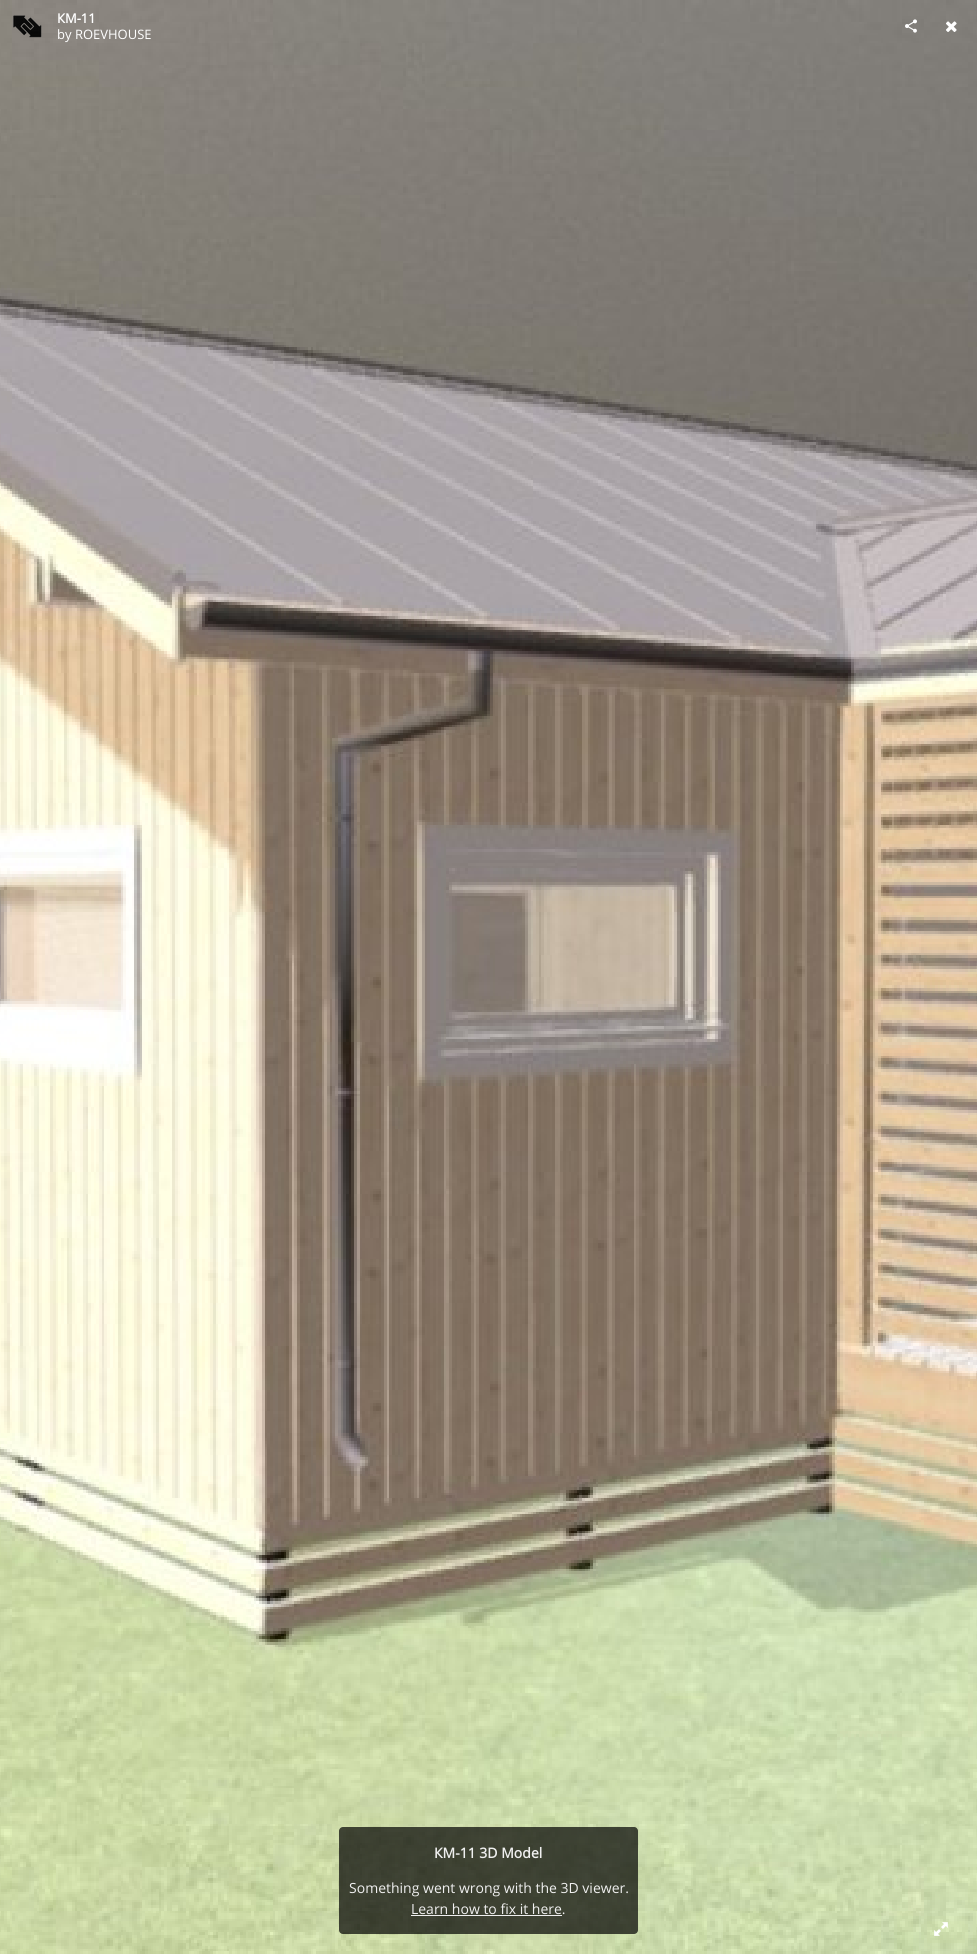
#include <cairo/cairo.h>
#include <math.h>
#include <stddef.h>

static cairo_t *cr;

static void rgb(unsigned color)
{
	cairo_set_source_rgb(cr, (color >> 16) / 255.0, (color >> 8 & 255) / 255.0, (color & 255) / 255.0);
}

static void rrect(double x, double y, double w, double h, double r)
{
	cairo_new_sub_path(cr);
	cairo_arc(cr, x + w - r, y + h - r, r, 0, M_PI / 2);
	cairo_arc(cr, x + r, y + h - r, r, M_PI / 2, M_PI);
	cairo_arc(cr, x + r, y + r, r, M_PI, 1.5 * M_PI);
	cairo_arc(cr, x + w - r, y + r, r, 1.5 * M_PI, 2 * M_PI);
	cairo_close_path(cr);
}

static void image(const char *path, double x, double y, double w, double h)
{
	cairo_surface_t *image = cairo_image_surface_create_from_png(path);
	cairo_save(cr);
	cairo_set_source_surface(cr, image, x, y);
	cairo_rectangle(cr, x, y, w, h);
	cairo_fill(cr);
	cairo_restore(cr);
	cairo_surface_destroy(image);
}

int main(void) {
	cairo_surface_t *surface = cairo_image_surface_create(CAIRO_FORMAT_RGB24, 977, 1954);
	cr = cairo_create(surface);
	cairo_font_options_t *options = cairo_font_options_create();
	cairo_font_options_set_hint_metrics(options, CAIRO_HINT_METRICS_OFF);
	cairo_font_options_set_hint_style(options, CAIRO_HINT_STYLE_NONE);
	cairo_set_font_options(cr, options);
	cairo_set_miter_limit(cr, 4);
	rgb(0xffffff);
	cairo_paint(cr);
	image("img/4.png", 0, 0, 977, 1954);
	image("img/1.png", 13, 15, 29, 23);
	image("img/2.png", 905, 19, 12, 14);
	image("img/3.png", 946, 21, 11, 11);
	cairo_set_source_rgba(cr, 0, 0, 0, 0.7);
	rrect(339, 1827, 299, 107, 4);
	cairo_fill(cr);
	rgb(0xefefef);
	cairo_rectangle(cr, 411, 1915, 151, 1);
	cairo_fill(cr);
	image("img/5.png", 934, 1922, 14, 14);
	cairo_select_font_face(cr, "Open Sans", CAIRO_FONT_SLANT_NORMAL, CAIRO_FONT_WEIGHT_BOLD);
	cairo_set_font_size(cr, 13);
	rgb(0xffffff);
	cairo_move_to(cr, 57, 23);
	cairo_show_text(cr, "КМ-11");
	cairo_select_font_face(cr, "Open Sans", CAIRO_FONT_SLANT_NORMAL, CAIRO_FONT_WEIGHT_NORMAL);
	cairo_move_to(cr, 57, 39);
	cairo_show_text(cr, "by ROEVHOUSE");
	cairo_select_font_face(cr, "Open Sans", CAIRO_FONT_SLANT_NORMAL, CAIRO_FONT_WEIGHT_BOLD);
	cairo_set_font_size(cr, 14);
	rgb(0xefefef);
	cairo_move_to(cr, 434, 1858);
	cairo_show_text(cr, "КМ-11 3D Model");
	cairo_select_font_face(cr, "Open Sans", CAIRO_FONT_SLANT_NORMAL, CAIRO_FONT_WEIGHT_NORMAL);
	cairo_move_to(cr, 349, 1893);
	cairo_show_text(cr, "Something went wrong with the 3D viewer.");
	cairo_move_to(cr, 411, 1914);
	cairo_show_text(cr, "Learn how to fix it here.");
	cairo_surface_write_to_png(surface, "page.png");
	cairo_font_options_destroy(options);
	cairo_destroy(cr);
	cairo_surface_destroy(surface);
	return 0;
}
